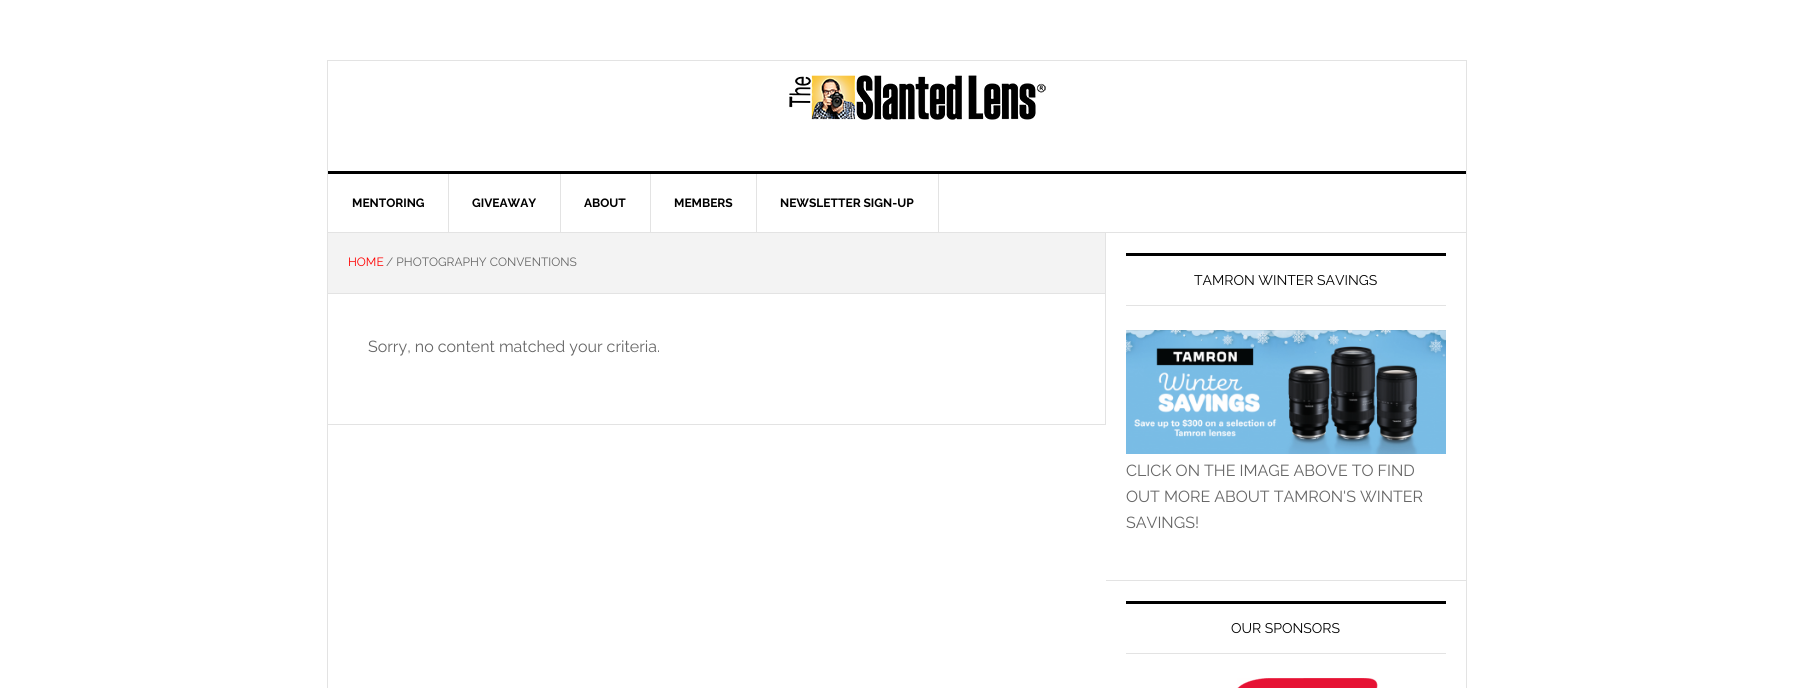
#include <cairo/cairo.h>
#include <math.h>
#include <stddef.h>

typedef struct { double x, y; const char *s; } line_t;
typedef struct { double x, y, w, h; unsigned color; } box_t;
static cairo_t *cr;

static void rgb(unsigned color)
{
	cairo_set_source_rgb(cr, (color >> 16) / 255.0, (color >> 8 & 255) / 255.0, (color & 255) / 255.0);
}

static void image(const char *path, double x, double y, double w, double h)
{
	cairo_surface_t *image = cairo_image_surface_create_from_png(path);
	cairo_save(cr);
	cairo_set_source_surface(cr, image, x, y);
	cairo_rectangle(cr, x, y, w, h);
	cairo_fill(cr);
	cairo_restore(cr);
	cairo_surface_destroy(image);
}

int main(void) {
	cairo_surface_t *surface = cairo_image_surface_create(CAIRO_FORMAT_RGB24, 1793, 688);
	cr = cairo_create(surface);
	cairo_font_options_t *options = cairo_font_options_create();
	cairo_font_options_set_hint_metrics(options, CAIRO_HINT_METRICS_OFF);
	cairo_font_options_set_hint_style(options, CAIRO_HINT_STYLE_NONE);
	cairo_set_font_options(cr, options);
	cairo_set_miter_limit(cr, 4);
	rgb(0xffffff);
	cairo_paint(cr);
	cairo_rectangle(cr, 327.5, 60.5, 1139, 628);
	rgb(0xe3e3e3);
	cairo_set_line_width(cr, 1);
	cairo_stroke(cr);
	image("img/1.png", 789, 75, 257, 45);
	{
		static const box_t items[] = {
			{328, 171, 1138, 3, 0x000000},
			{328, 232, 1138, 1, 0xe3e3e3},
			{448, 174, 1, 58, 0xe3e3e3},
			{560, 174, 1, 58, 0xe3e3e3},
			{650, 174, 1, 58, 0xe3e3e3},
			{756, 174, 1, 58, 0xe3e3e3},
			{938, 174, 1, 58, 0xe3e3e3},
			{1105, 233, 1, 192, 0xe3e3e3},
			{328, 233, 777, 60, 0xf3f3f3},
			{328, 293, 777, 1, 0xe3e3e3},
			{328, 424, 777, 1, 0xe3e3e3},
			{1106, 580, 360, 1, 0xe3e3e3},
			{1126, 253, 320, 3, 0x000000},
			{1126, 305, 320, 1, 0xe3e3e3},
		};
		for (size_t i = 0; i < sizeof items / sizeof *items; i++) {
			rgb(items[i].color);
			cairo_rectangle(cr, items[i].x, items[i].y, items[i].w, items[i].h);
			cairo_fill(cr);
		}
	}
	image("img/2.png", 1126, 330, 320, 124);
	rgb(0x000000);
	cairo_rectangle(cr, 1126, 601, 320, 3);
	cairo_fill(cr);
	rgb(0xe3e3e3);
	cairo_rectangle(cr, 1126, 653, 320, 1);
	cairo_fill(cr);
	image("img/3.png", 1237, 678, 141, 10);
	cairo_select_font_face(cr, "Raleway", CAIRO_FONT_SLANT_NORMAL, CAIRO_FONT_WEIGHT_BOLD);
	cairo_set_font_size(cr, 12);
	rgb(0x000000);
	{
		static const line_t items[] = {
			{352, 207, "MENTORING"},
			{472, 207, "GIVEAWAY"},
			{584, 207, "ABOUT"},
			{674, 207, "MEMBERS"},
			{780, 207, "NEWSLETTER SIGN-UP"},
		};
		for (size_t i = 0; i < sizeof items / sizeof *items; i++) {
			cairo_move_to(cr, items[i].x, items[i].y);
			cairo_show_text(cr, items[i].s);
		}
	}
	cairo_select_font_face(cr, "Raleway", CAIRO_FONT_SLANT_NORMAL, CAIRO_FONT_WEIGHT_NORMAL);
	rgb(0xff0000);
	cairo_move_to(cr, 348, 266);
	cairo_show_text(cr, "HOME");
	rgb(0x666666);
	cairo_move_to(cr, 386, 266);
	cairo_show_text(cr, "/ PHOTOGRAPHY CONVENTIONS");
	cairo_set_font_size(cr, 16);
	cairo_move_to(cr, 368, 352);
	cairo_show_text(cr, "Sorry, no content matched your criteria.");
	cairo_set_font_size(cr, 14);
	rgb(0x000000);
	cairo_move_to(cr, 1194, 285);
	cairo_show_text(cr, "TAMRON WINTER SAVINGS");
	cairo_set_font_size(cr, 16);
	rgb(0x666666);
	{
		static const line_t items[] = {
			{1126, 476, "CLICK ON THE IMAGE ABOVE TO FIND"},
			{1126, 502, "OUT MORE ABOUT TAMRON'S WINTER"},
			{1126, 528, "SAVINGS!"},
		};
		for (size_t i = 0; i < sizeof items / sizeof *items; i++) {
			cairo_move_to(cr, items[i].x, items[i].y);
			cairo_show_text(cr, items[i].s);
		}
	}
	cairo_set_font_size(cr, 14);
	rgb(0x000000);
	cairo_move_to(cr, 1231, 633);
	cairo_show_text(cr, "OUR SPONSORS");
	cairo_surface_write_to_png(surface, "page.png");
	cairo_font_options_destroy(options);
	cairo_destroy(cr);
	cairo_surface_destroy(surface);
	return 0;
}
